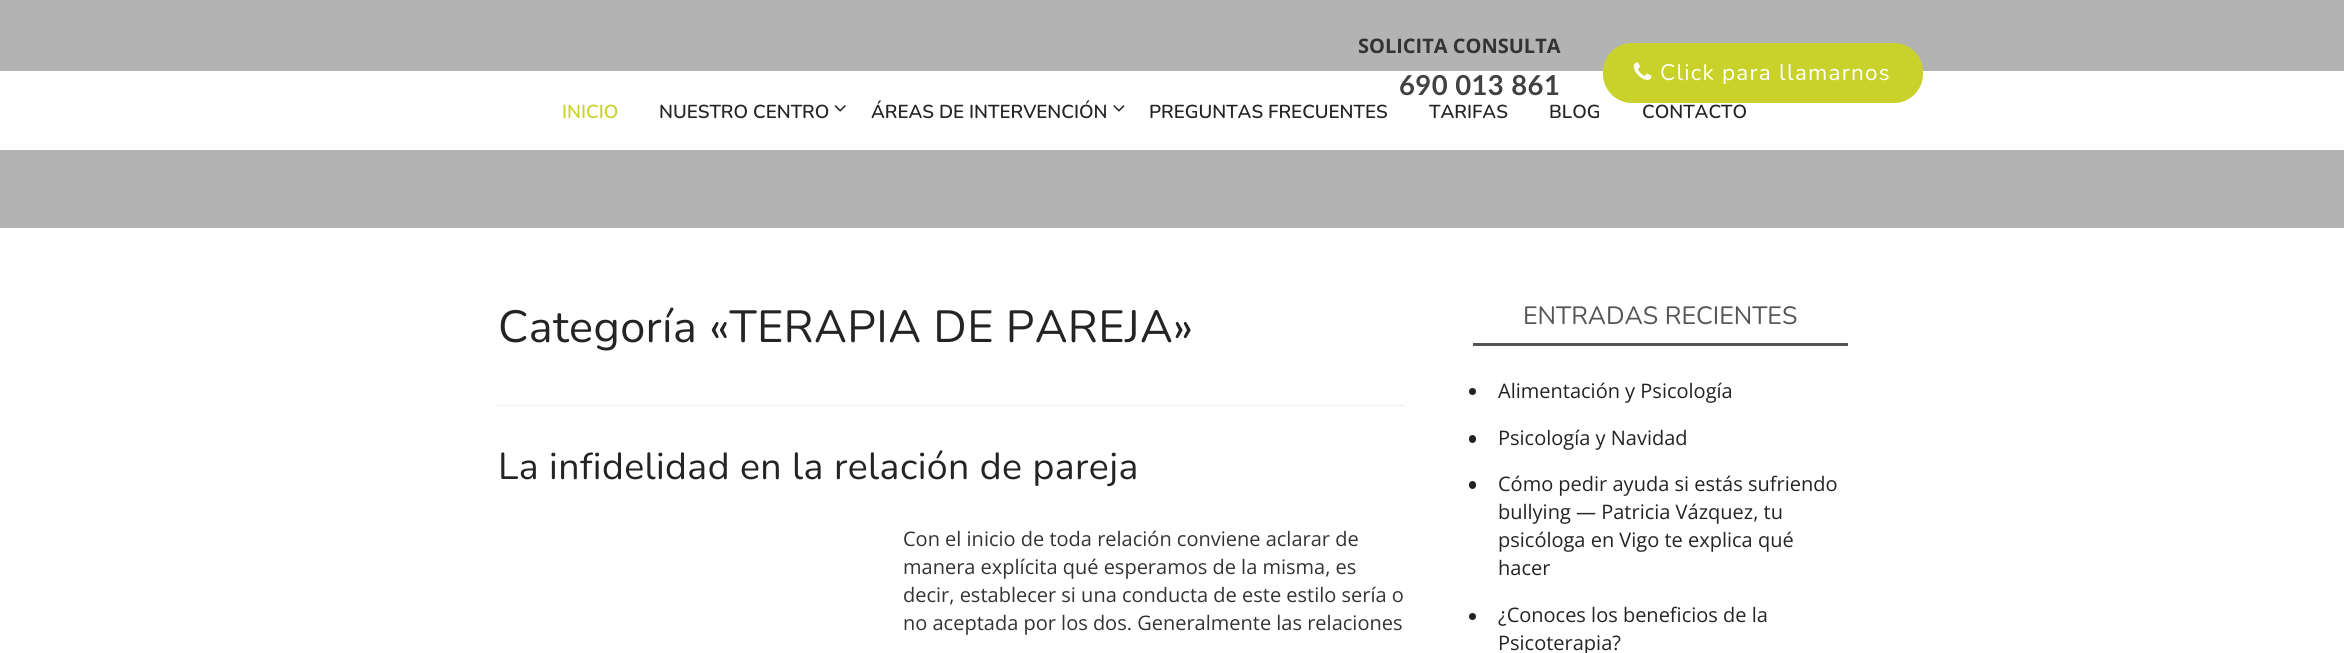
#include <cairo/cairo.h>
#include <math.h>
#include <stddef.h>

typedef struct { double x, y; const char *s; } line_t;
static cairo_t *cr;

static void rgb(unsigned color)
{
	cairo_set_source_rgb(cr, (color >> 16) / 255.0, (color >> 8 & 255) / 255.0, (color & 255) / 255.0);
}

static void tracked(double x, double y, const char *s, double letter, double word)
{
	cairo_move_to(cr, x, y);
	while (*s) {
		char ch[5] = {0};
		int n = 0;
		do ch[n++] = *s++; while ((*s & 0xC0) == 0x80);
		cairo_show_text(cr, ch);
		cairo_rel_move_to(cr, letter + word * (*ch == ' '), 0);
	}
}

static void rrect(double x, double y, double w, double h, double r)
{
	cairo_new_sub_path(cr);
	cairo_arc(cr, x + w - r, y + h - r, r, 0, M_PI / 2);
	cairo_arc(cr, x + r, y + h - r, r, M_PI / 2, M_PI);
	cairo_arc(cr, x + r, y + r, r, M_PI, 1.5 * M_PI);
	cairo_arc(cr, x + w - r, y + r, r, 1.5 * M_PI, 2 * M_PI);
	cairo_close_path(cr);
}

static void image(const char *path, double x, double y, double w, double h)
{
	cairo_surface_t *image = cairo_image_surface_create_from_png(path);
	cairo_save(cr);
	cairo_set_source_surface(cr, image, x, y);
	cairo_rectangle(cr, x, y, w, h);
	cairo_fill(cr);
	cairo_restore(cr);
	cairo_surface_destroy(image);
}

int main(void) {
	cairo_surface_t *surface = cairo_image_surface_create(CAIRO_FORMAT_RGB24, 2344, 653);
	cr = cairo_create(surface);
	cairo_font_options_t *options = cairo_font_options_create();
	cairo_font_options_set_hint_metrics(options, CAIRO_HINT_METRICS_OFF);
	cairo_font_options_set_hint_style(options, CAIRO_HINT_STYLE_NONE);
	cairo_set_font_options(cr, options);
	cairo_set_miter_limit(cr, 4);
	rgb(0xffffff);
	cairo_paint(cr);
	rgb(0xb3b3b3);
	cairo_rectangle(cr, 0, 0, 2344, 228);
	cairo_fill(cr);
	rgb(0xffffff);
	cairo_rectangle(cr, 0, 71, 2344, 79);
	cairo_fill(cr);
	rgb(0xc9d22b);
	rrect(1603, 43, 320, 60, 29);
	cairo_fill(cr);
	image("img/1.png", 1633, 62, 19, 18);
	image("img/2.png", 834, 105, 12, 7);
	image("img/3.png", 1113, 105, 12, 7);
	cairo_new_path(cr);
	cairo_move_to(cr, 497.5, 405.5);
	cairo_line_to(cr, 1404, 405.5);
	rgb(0xe2e2e2);
	cairo_set_line_width(cr, 1.2);
	cairo_set_dash(cr, (double[]){1.25, 1.25}, 2, 0);
	cairo_stroke(cr);
	rgb(0x555555);
	cairo_rectangle(cr, 1473, 343, 375, 3);
	cairo_fill(cr);
	rgb(0x222222);
	cairo_arc(cr, 1472.5, 391.5, 3.5, 0, 2 * M_PI);
	cairo_fill(cr);
	rrect(1469, 435, 7, 8, 3.5);
	cairo_fill(cr);
	rrect(1469, 481, 7, 8, 3.5);
	cairo_fill(cr);
	cairo_arc(cr, 1472.5, 616.5, 3.5, 0, 2 * M_PI);
	cairo_fill(cr);
	cairo_select_font_face(cr, "Open Sans", CAIRO_FONT_SLANT_NORMAL, CAIRO_FONT_WEIGHT_BOLD);
	cairo_set_font_size(cr, 20);
	rgb(0x333333);
	cairo_move_to(cr, 1358, 53);
	cairo_show_text(cr, "SOLICITA CONSULTA");
	cairo_select_font_face(cr, "Lato", CAIRO_FONT_SLANT_NORMAL, CAIRO_FONT_WEIGHT_BOLD);
	cairo_set_font_size(cr, 27.5);
	rgb(0x424242);
	tracked(1399, 95, "690 013 861", 0.4, 0);
	cairo_select_font_face(cr, "Nunito", CAIRO_FONT_SLANT_NORMAL, CAIRO_FONT_WEIGHT_NORMAL);
	cairo_set_font_size(cr, 22.5);
	rgb(0xffffff);
	tracked(1660, 80, "Click para llamarnos", 1.25, 0);
	cairo_select_font_face(cr, "Nunito SemiBold", CAIRO_FONT_SLANT_NORMAL, CAIRO_FONT_WEIGHT_NORMAL);
	cairo_set_font_size(cr, 18.75);
	rgb(0xc9d22b);
	cairo_move_to(cr, 562, 118);
	cairo_show_text(cr, "INICIO");
	rgb(0x242424);
	{
		static const line_t items[] = {
			{659, 118, "NUESTRO CENTRO"},
			{871, 118, "ÁREAS DE INTERVENCIÓN"},
			{1149, 118, "PREGUNTAS FRECUENTES"},
			{1429, 118, "TARIFAS"},
			{1549, 118, "BLOG"},
			{1642, 118, "CONTACTO"},
		};
		for (size_t i = 0; i < sizeof items / sizeof *items; i++) {
			cairo_move_to(cr, items[i].x, items[i].y);
			cairo_show_text(cr, items[i].s);
		}
	}
	cairo_select_font_face(cr, "Nunito", CAIRO_FONT_SLANT_NORMAL, CAIRO_FONT_WEIGHT_NORMAL);
	cairo_set_font_size(cr, 45);
	tracked(498, 342, "Categoría «TERAPIA DE PAREJA»", 0.4, 0);
	cairo_set_font_size(cr, 37.5);
	tracked(498, 479, "La infidelidad en la relación de pareja", 0.4, 0);
	cairo_select_font_face(cr, "Open Sans", CAIRO_FONT_SLANT_NORMAL, CAIRO_FONT_WEIGHT_NORMAL);
	cairo_set_font_size(cr, 20);
	rgb(0x333333);
	{
		static const line_t items[] = {
			{903, 546, "Con el inicio de toda relación conviene aclarar de"},
			{903, 574, "manera explícita qué esperamos de la misma, es"},
			{903, 602, "decir, establecer si una conducta de este estilo sería o"},
			{903, 630, "no aceptada por los dos. Generalmente las relaciones"},
		};
		for (size_t i = 0; i < sizeof items / sizeof *items; i++) {
			cairo_move_to(cr, items[i].x, items[i].y);
			cairo_show_text(cr, items[i].s);
		}
	}
	cairo_select_font_face(cr, "Nunito", CAIRO_FONT_SLANT_NORMAL, CAIRO_FONT_WEIGHT_NORMAL);
	cairo_set_font_size(cr, 25);
	rgb(0x555555);
	cairo_move_to(cr, 1523, 324);
	cairo_show_text(cr, "ENTRADAS RECIENTES");
	cairo_select_font_face(cr, "Open Sans", CAIRO_FONT_SLANT_NORMAL, CAIRO_FONT_WEIGHT_NORMAL);
	cairo_set_font_size(cr, 20);
	rgb(0x242424);
	{
		static const line_t items[] = {
			{1498, 398, "Alimentación y Psicología"},
			{1498, 445, "Psicología y Navidad"},
			{1498, 491, "Cómo pedir ayuda si estás sufriendo"},
			{1498, 519, "bullying — Patricia Vázquez, tu"},
			{1498, 547, "psicóloga en Vigo te explica qué"},
			{1498, 575, "hacer"},
			{1498, 622, "¿Conoces los beneficios de la"},
			{1498, 650, "Psicoterapia?"},
		};
		for (size_t i = 0; i < sizeof items / sizeof *items; i++) {
			cairo_move_to(cr, items[i].x, items[i].y);
			cairo_show_text(cr, items[i].s);
		}
	}
	cairo_surface_write_to_png(surface, "page.png");
	cairo_font_options_destroy(options);
	cairo_destroy(cr);
	cairo_surface_destroy(surface);
	return 0;
}
